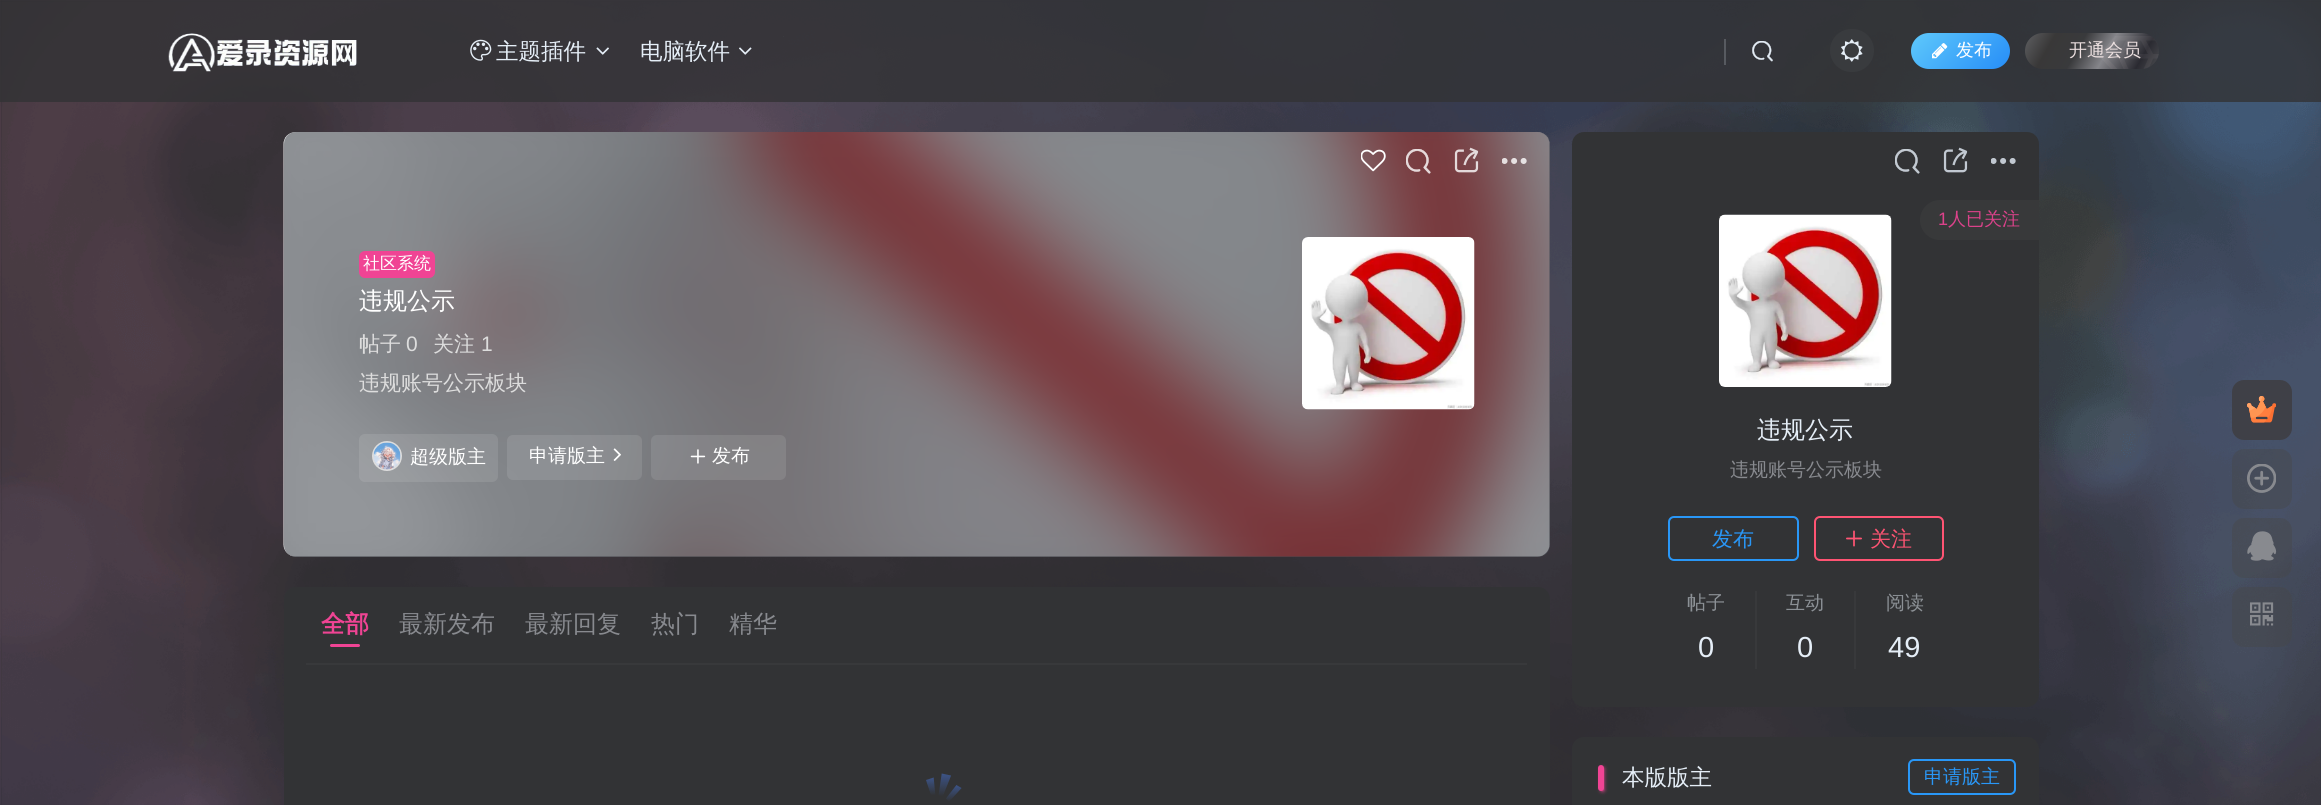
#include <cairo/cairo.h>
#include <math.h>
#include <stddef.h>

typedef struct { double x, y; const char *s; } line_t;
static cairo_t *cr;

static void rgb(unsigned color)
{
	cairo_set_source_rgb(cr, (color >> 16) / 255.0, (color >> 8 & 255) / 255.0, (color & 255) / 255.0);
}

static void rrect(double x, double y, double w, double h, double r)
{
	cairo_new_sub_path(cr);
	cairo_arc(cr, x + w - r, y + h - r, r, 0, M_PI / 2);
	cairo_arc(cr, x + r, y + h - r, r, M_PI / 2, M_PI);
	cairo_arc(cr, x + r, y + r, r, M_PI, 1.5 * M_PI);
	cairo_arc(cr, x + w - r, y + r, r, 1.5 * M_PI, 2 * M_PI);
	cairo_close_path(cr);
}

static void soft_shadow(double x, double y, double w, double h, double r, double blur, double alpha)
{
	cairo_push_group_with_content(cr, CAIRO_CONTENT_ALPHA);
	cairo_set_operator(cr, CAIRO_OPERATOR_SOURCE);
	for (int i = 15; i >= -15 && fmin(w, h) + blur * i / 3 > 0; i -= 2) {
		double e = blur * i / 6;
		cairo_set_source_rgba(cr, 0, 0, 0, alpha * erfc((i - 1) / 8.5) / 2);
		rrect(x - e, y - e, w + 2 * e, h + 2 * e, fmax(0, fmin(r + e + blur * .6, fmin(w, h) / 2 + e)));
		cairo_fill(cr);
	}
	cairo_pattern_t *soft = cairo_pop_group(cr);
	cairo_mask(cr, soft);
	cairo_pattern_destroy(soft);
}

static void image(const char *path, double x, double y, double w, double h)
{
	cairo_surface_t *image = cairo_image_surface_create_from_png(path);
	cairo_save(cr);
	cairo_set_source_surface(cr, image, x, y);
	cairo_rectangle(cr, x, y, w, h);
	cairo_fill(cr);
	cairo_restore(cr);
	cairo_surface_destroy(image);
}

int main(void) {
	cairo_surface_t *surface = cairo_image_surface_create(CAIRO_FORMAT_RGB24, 2321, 805);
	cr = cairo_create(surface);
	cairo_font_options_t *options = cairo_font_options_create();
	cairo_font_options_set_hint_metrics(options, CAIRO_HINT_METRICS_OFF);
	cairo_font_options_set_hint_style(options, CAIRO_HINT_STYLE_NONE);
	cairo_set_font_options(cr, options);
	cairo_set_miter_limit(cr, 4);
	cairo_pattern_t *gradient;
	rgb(0x292a2d);
	cairo_paint(cr);
	image("img/1.png", 0, 0, 2321, 805);
	cairo_set_source_rgba(cr, 0.196, 0.2, 0.208, 0.8);
	cairo_rectangle(cr, 0, 0, 2321, 102);
	cairo_fill(cr);
	image("img/2.png", 168, 33, 189, 39);
	rgb(0x3a3a3f);
	cairo_rectangle(cr, 783, 36, 1, 1);
	cairo_fill(cr);
	image("img/3.png", 470, 39, 22, 22);
	image("img/4.png", 596, 47, 13, 8);
	image("img/5.png", 739, 47, 13, 8);
	rgb(0x575a60);
	cairo_rectangle(cr, 1724, 39, 2, 26);
	cairo_fill(cr);
	image("img/6.png", 1752, 41, 21, 21);
	rgb(0x393b3e);
	rrect(1830, 29, 44, 43, 21.5);
	cairo_fill(cr);
	image("img/7.png", 1841, 39, 22, 23);
	gradient = cairo_pattern_create_linear(1927, 17, 1994, 85);
	cairo_pattern_add_color_stop_rgba(gradient, 0.1, 0.349, 0.765, 0.984, 1);
	cairo_pattern_add_color_stop_rgba(gradient, 1, 0.149, 0.553, 0.969, 1);
	cairo_set_source(cr, gradient);
	cairo_pattern_destroy(gradient);
	rrect(1911, 33, 99, 36, 18);
	cairo_fill(cr);
	image("img/8.png", 1932, 43, 16, 16);
	gradient = cairo_pattern_create_linear(2150, 84, 2034, 18);
	cairo_pattern_add_color_stop_rgba(gradient, 0, 0.298, 0.302, 0.318, 1);
	cairo_pattern_add_color_stop_rgba(gradient, 0.15, 0.165, 0.165, 0.192, 1);
	cairo_pattern_add_color_stop_rgba(gradient, 0.4, 0.522, 0.522, 0.541, 1);
	cairo_pattern_add_color_stop_rgba(gradient, 0.6, 0.224, 0.227, 0.235, 1);
	cairo_pattern_add_color_stop_rgba(gradient, 0.8, 0.224, 0.22, 0.22, 1);
	cairo_pattern_add_color_stop_rgba(gradient, 1, 0.369, 0.373, 0.384, 1);
	cairo_set_source(cr, gradient);
	cairo_pattern_destroy(gradient);
	rrect(2025, 33, 134, 36, 18);
	cairo_fill(cr);
	image("img/10.png", 283, 132, 1267, 425);
	cairo_set_source_rgba(cr, 0.298, 0.314, 0.341, 0.6);
	rrect(284, 132, 1266, 425, 12);
	cairo_fill(cr);
	image("img/11.png", 1361, 149, 25, 23);
	image("img/12.png", 1406, 149, 25, 25);
	image("img/13.png", 1454, 147, 25, 26);
	image("img/14.png", 1502, 158, 25, 6);
	rgb(0xf04494);
	rrect(359, 251, 76, 27, 6);
	cairo_fill(cr);
	image("img/15.png", 1302, 237, 173, 173);
	cairo_set_source_rgba(cr, 1, 1, 1, 0.1);
	rrect(359, 434, 139, 48, 6);
	cairo_fill(cr);
	cairo_arc(cr, 387, 456, 14, 0, 2 * M_PI);
	rgb(0xdddddd);
	cairo_stroke(cr);
	image("img/16.png", 373, 442, 28, 28);
	cairo_set_source_rgba(cr, 1, 1, 1, 0.1);
	rrect(507, 435, 135, 45, 6);
	cairo_fill(cr);
	image("img/17.png", 613, 448, 8, 13);
	rrect(651, 435, 135, 45, 6);
	cairo_fill(cr);
	image("img/18.png", 690, 449, 16, 15);
	rgb(0x323335);
	rrect(284, 587, 1266, 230, 12);
	cairo_fill(cr);
	rgb(0x38393b);
	cairo_rectangle(cr, 306, 663, 1221, 2);
	cairo_fill(cr);
	rgb(0xf04494);
	rrect(330, 644, 30, 3, 1.5);
	cairo_fill(cr);
	image("img/19.png", 926, 773, 36, 28);
	rgb(0x323335);
	rrect(1572, 132, 467, 575, 12);
	cairo_fill(cr);
	image("img/20.png", 1895, 149, 25, 25);
	image("img/21.png", 1943, 147, 25, 26);
	image("img/22.png", 1991, 158, 25, 6);
	rgb(0x38393a);
	cairo_new_path(cr);
	cairo_move_to(cr, 1940, 200);
	cairo_line_to(cr, 2039, 200);
	cairo_line_to(cr, 2039, 240);
	cairo_line_to(cr, 1940, 240);
	cairo_curve_to(cr, 1929, 240, 1920, 231, 1920, 220);
	cairo_curve_to(cr, 1920, 209, 1929, 200, 1940, 200);
	cairo_close_path(cr);
	cairo_fill(cr);
	image("img/23.png", 1719, 214, 173, 173);
	rrect(1669, 517, 129, 43, 5);
	rgb(0x2997f7);
	cairo_stroke(cr);
	rrect(1815, 517, 128, 43, 5);
	rgb(0xff5473);
	cairo_stroke(cr);
	image("img/24.png", 1846, 530, 16, 17);
	rgb(0x38393b);
	cairo_rectangle(cr, 1755, 591, 2, 78);
	cairo_fill(cr);
	cairo_rectangle(cr, 1854, 591, 2, 78);
	cairo_fill(cr);
	rgb(0x323335);
	rrect(1572, 737, 467, 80, 12);
	cairo_fill(cr);
	rgb(0xf04494);
	soft_shadow(1601, 768, 3, 23, 1.5, 2, 1);
	rgb(0xf04494);
	rrect(1598, 765, 6, 26, 3);
	cairo_fill(cr);
	rrect(1909, 760, 106, 34, 5);
	rgb(0x2997f7);
	cairo_stroke(cr);
	rgb(0x3f4047);
	rrect(2232, 380, 60, 60, 12);
	cairo_fill(cr);
	image("img/25.png", 2247, 396, 29, 27);
	cairo_set_source_rgba(cr, 0.275, 0.275, 0.275, 0.4);
	rrect(2232, 449, 60, 60, 12);
	cairo_fill(cr);
	image("img/26.png", 2247, 464, 29, 29);
	rrect(2232, 518, 60, 60, 12);
	cairo_fill(cr);
	image("img/27.png", 2247, 531, 30, 30);
	rrect(2232, 587, 60, 60, 12);
	cairo_fill(cr);
	image("img/28.png", 2250, 602, 24, 24);
	cairo_select_font_face(cr, "WenQuanYi Zen Hei Medium", CAIRO_FONT_SLANT_NORMAL, CAIRO_FONT_WEIGHT_NORMAL);
	cairo_set_font_size(cr, 22.5);
	rgb(0xe5eef7);
	cairo_move_to(cr, 496, 59);
	cairo_show_text(cr, "主题插件");
	cairo_move_to(cr, 640, 59);
	cairo_show_text(cr, "电脑软件");
	cairo_set_font_size(cr, 18);
	rgb(0xffffff);
	cairo_move_to(cr, 1956, 56);
	cairo_show_text(cr, "发布");
	rgb(0xece0e0);
	cairo_move_to(cr, 2069, 56);
	cairo_show_text(cr, "开通会员");
	image("img/9.png", 2100, 36, 59, 33);
	cairo_set_font_size(cr, 17);
	rgb(0xffffff);
	cairo_move_to(cr, 363, 269);
	cairo_show_text(cr, "社区系统");
	cairo_set_font_size(cr, 24);
	cairo_move_to(cr, 359, 309);
	cairo_show_text(cr, "违规公示");
	cairo_set_font_size(cr, 21);
	rgb(0xdddddd);
	cairo_move_to(cr, 359, 351);
	cairo_show_text(cr, "帖子");
	cairo_select_font_face(cr, "Liberation Sans", CAIRO_FONT_SLANT_NORMAL, CAIRO_FONT_WEIGHT_NORMAL);
	cairo_move_to(cr, 406, 351);
	cairo_show_text(cr, "0");
	cairo_select_font_face(cr, "WenQuanYi Zen Hei Medium", CAIRO_FONT_SLANT_NORMAL, CAIRO_FONT_WEIGHT_NORMAL);
	cairo_move_to(cr, 433, 351);
	cairo_show_text(cr, "关注");
	cairo_select_font_face(cr, "Liberation Sans", CAIRO_FONT_SLANT_NORMAL, CAIRO_FONT_WEIGHT_NORMAL);
	cairo_move_to(cr, 481, 351);
	cairo_show_text(cr, "1");
	cairo_select_font_face(cr, "WenQuanYi Zen Hei Medium", CAIRO_FONT_SLANT_NORMAL, CAIRO_FONT_WEIGHT_NORMAL);
	cairo_move_to(cr, 359, 390);
	cairo_show_text(cr, "违规账号公示板块");
	cairo_set_font_size(cr, 19);
	rgb(0xffffff);
	{
		static const line_t items[] = {
			{410, 463, "超级版主"},
			{529, 462, "申请版主"},
			{712, 462, "发布"},
		};
		for (size_t i = 0; i < sizeof items / sizeof *items; i++) {
			cairo_move_to(cr, items[i].x, items[i].y);
			cairo_show_text(cr, items[i].s);
		}
	}
	cairo_select_font_face(cr, "WenQuanYi Zen Hei", CAIRO_FONT_SLANT_NORMAL, CAIRO_FONT_WEIGHT_BOLD);
	cairo_set_font_size(cr, 24);
	rgb(0xf04494);
	cairo_move_to(cr, 321, 632);
	cairo_show_text(cr, "全部");
	cairo_select_font_face(cr, "WenQuanYi Zen Hei Medium", CAIRO_FONT_SLANT_NORMAL, CAIRO_FONT_WEIGHT_NORMAL);
	rgb(0x888a8f);
	{
		static const line_t items[] = {
			{399, 632, "最新发布"},
			{525, 632, "最新回复"},
			{651, 632, "热门"},
			{729, 632, "精华"},
		};
		for (size_t i = 0; i < sizeof items / sizeof *items; i++) {
			cairo_move_to(cr, items[i].x, items[i].y);
			cairo_show_text(cr, items[i].s);
		}
	}
	cairo_select_font_face(cr, "Liberation Sans", CAIRO_FONT_SLANT_NORMAL, CAIRO_FONT_WEIGHT_NORMAL);
	cairo_set_font_size(cr, 18);
	rgb(0xdd428b);
	cairo_move_to(cr, 1938, 225);
	cairo_show_text(cr, "1");
	cairo_select_font_face(cr, "WenQuanYi Zen Hei Medium", CAIRO_FONT_SLANT_NORMAL, CAIRO_FONT_WEIGHT_NORMAL);
	cairo_move_to(cr, 1948, 225);
	cairo_show_text(cr, "人已关注");
	cairo_set_font_size(cr, 24);
	rgb(0xe5eef7);
	cairo_move_to(cr, 1757, 438);
	cairo_show_text(cr, "违规公示");
	cairo_set_font_size(cr, 19);
	rgb(0x888a8f);
	cairo_move_to(cr, 1730, 476);
	cairo_show_text(cr, "违规账号公示板块");
	cairo_set_font_size(cr, 21);
	rgb(0x2997f7);
	cairo_move_to(cr, 1712, 546);
	cairo_show_text(cr, "发布");
	rgb(0xff5473);
	cairo_move_to(cr, 1870, 546);
	cairo_show_text(cr, "关注");
	cairo_set_font_size(cr, 19);
	rgb(0x8c9196);
	cairo_move_to(cr, 1687, 609);
	cairo_show_text(cr, "帖子");
	cairo_select_font_face(cr, "Liberation Sans", CAIRO_FONT_SLANT_NORMAL, CAIRO_FONT_WEIGHT_NORMAL);
	cairo_set_font_size(cr, 29);
	rgb(0xe5eef7);
	cairo_move_to(cr, 1698, 657);
	cairo_show_text(cr, "0");
	cairo_select_font_face(cr, "WenQuanYi Zen Hei Medium", CAIRO_FONT_SLANT_NORMAL, CAIRO_FONT_WEIGHT_NORMAL);
	cairo_set_font_size(cr, 19);
	rgb(0x8c9196);
	cairo_move_to(cr, 1786, 609);
	cairo_show_text(cr, "互动");
	cairo_select_font_face(cr, "Liberation Sans", CAIRO_FONT_SLANT_NORMAL, CAIRO_FONT_WEIGHT_NORMAL);
	cairo_set_font_size(cr, 29);
	rgb(0xe5eef7);
	cairo_move_to(cr, 1797, 657);
	cairo_show_text(cr, "0");
	cairo_select_font_face(cr, "WenQuanYi Zen Hei Medium", CAIRO_FONT_SLANT_NORMAL, CAIRO_FONT_WEIGHT_NORMAL);
	cairo_set_font_size(cr, 19);
	rgb(0x8c9196);
	cairo_move_to(cr, 1886, 609);
	cairo_show_text(cr, "阅读");
	cairo_select_font_face(cr, "Liberation Sans", CAIRO_FONT_SLANT_NORMAL, CAIRO_FONT_WEIGHT_NORMAL);
	cairo_set_font_size(cr, 29);
	rgb(0xe5eef7);
	cairo_move_to(cr, 1888, 657);
	cairo_show_text(cr, "49");
	cairo_select_font_face(cr, "WenQuanYi Zen Hei Medium", CAIRO_FONT_SLANT_NORMAL, CAIRO_FONT_WEIGHT_NORMAL);
	cairo_set_font_size(cr, 22.5);
	cairo_move_to(cr, 1622, 785);
	cairo_show_text(cr, "本版版主");
	cairo_set_font_size(cr, 19);
	rgb(0x2997f7);
	cairo_move_to(cr, 1924, 783);
	cairo_show_text(cr, "申请版主");
	cairo_surface_write_to_png(surface, "page.png");
	cairo_font_options_destroy(options);
	cairo_destroy(cr);
	cairo_surface_destroy(surface);
	return 0;
}
